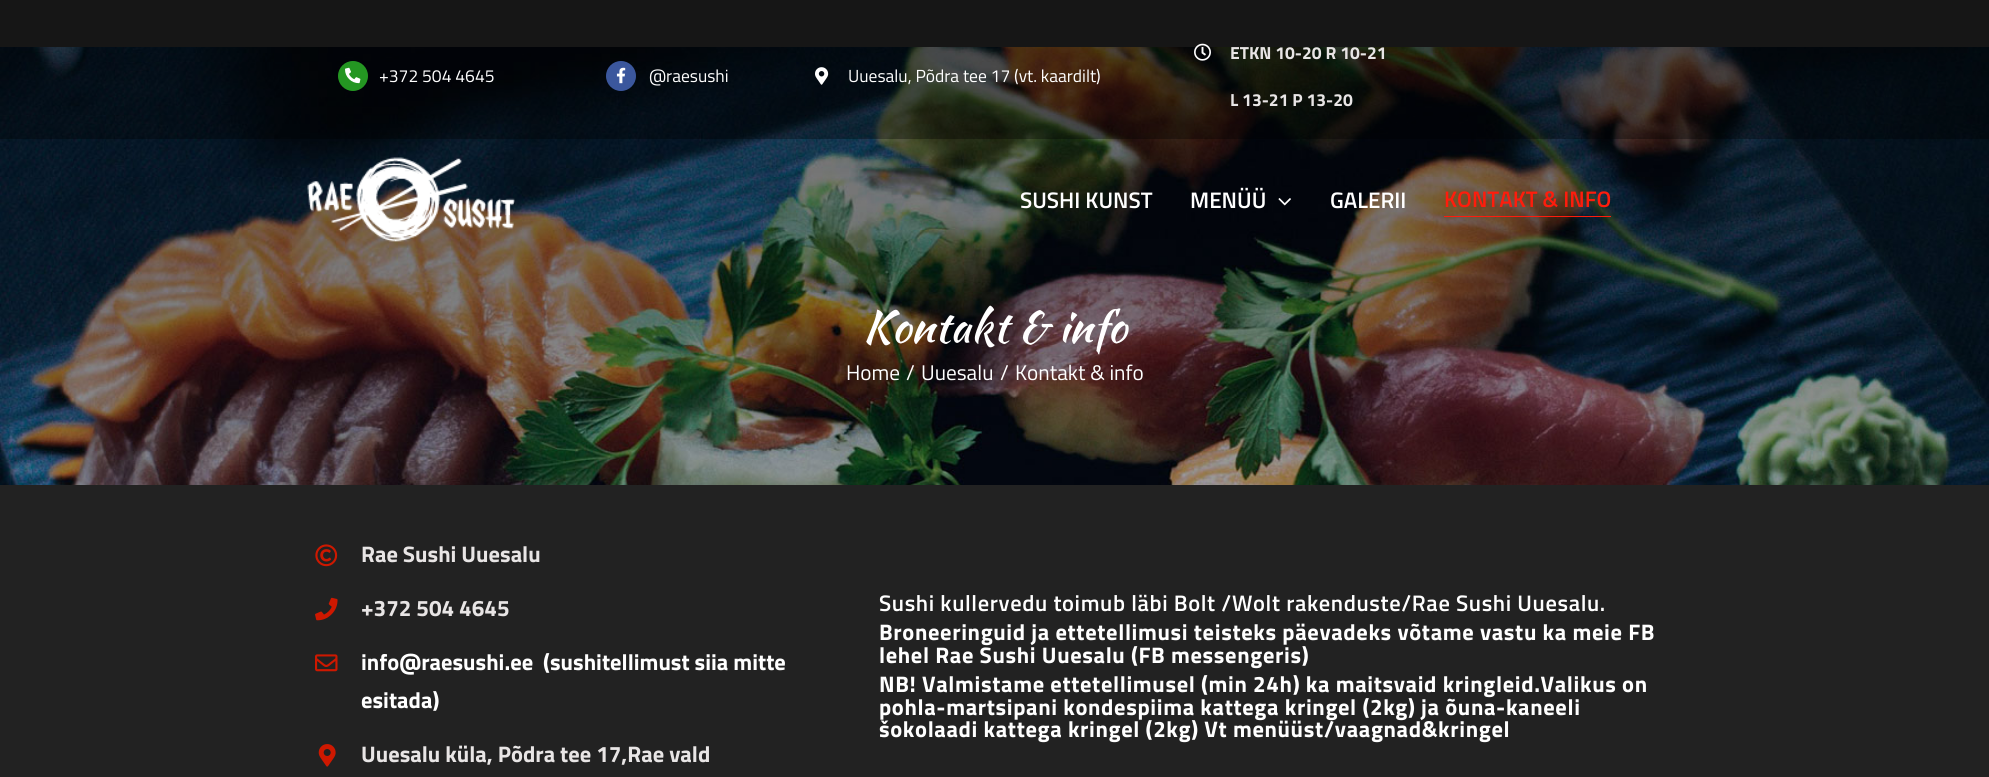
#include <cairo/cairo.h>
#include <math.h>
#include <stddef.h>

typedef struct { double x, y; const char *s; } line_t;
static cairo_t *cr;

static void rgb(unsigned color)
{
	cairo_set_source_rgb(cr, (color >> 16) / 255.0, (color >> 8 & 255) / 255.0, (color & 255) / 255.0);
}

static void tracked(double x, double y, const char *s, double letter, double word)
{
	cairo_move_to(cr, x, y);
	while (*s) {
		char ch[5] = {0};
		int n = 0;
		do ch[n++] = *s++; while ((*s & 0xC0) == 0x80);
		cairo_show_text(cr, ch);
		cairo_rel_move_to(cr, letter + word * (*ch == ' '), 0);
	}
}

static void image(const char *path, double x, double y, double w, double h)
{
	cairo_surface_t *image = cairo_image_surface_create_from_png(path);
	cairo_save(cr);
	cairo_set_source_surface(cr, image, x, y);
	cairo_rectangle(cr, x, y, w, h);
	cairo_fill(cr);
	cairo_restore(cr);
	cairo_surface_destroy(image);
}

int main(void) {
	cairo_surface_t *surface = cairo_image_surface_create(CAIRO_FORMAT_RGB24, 1989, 777);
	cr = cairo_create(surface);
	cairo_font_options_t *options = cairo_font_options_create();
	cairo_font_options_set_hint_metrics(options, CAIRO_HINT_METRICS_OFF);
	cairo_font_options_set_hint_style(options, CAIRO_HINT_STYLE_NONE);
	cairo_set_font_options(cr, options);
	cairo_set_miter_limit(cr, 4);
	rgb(0x222222);
	cairo_paint(cr);
	image("img/7.png", 0, 47, 1989, 438);
	cairo_set_source_rgba(cr, 0, 0, 0, 0.35);
	cairo_rectangle(cr, 0, 0, 1989, 139);
	cairo_fill(cr);
	rgb(0x249622);
	cairo_arc(cr, 353, 76, 15, 0, 2 * M_PI);
	cairo_fill(cr);
	image("img/1.png", 345, 67, 16, 17);
	rgb(0x3b579d);
	cairo_arc(cr, 621, 76, 15, 0, 2 * M_PI);
	cairo_fill(cr);
	image("img/2.png", 616, 67, 10, 17);
	image("img/3.png", 815, 67, 14, 18);
	image("img/4.png", 1194, 43, 17, 18);
	image("img/5.png", 307, 157, 208, 85);
	image("img/6.png", 1278, 198, 13, 8);
	rgb(0xff1c0c);
	cairo_rectangle(cr, 1444, 216, 167, 1);
	cairo_fill(cr);
	image("img/8.png", 315, 544, 23, 23);
	image("img/9.png", 315, 597, 23, 24);
	image("img/10.png", 315, 654, 23, 18);
	image("img/11.png", 318, 744, 18, 23);
	cairo_select_font_face(cr, "Titillium Web", CAIRO_FONT_SLANT_NORMAL, CAIRO_FONT_WEIGHT_NORMAL);
	cairo_set_font_size(cr, 17.5);
	rgb(0xffffff);
	{
		static const line_t items[] = {
			{379, 82, "+372 504 4645"},
			{649, 82, "@raesushi"},
			{848, 82, "Uuesalu, Põdra tee 17 (vt. kaardilt)"},
		};
		for (size_t i = 0; i < sizeof items / sizeof *items; i++) {
			cairo_move_to(cr, items[i].x, items[i].y);
			cairo_show_text(cr, items[i].s);
		}
	}
	cairo_select_font_face(cr, "Titillium Web", CAIRO_FONT_SLANT_NORMAL, CAIRO_FONT_WEIGHT_BOLD);
	rgb(0xe8e5e5);
	cairo_move_to(cr, 1230, 59);
	cairo_show_text(cr, "ETKN 10-20 R 10-21");
	cairo_move_to(cr, 1230, 106);
	cairo_show_text(cr, "L 13-21 P 13-20");
	cairo_select_font_face(cr, "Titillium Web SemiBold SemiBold", CAIRO_FONT_SLANT_NORMAL, CAIRO_FONT_WEIGHT_NORMAL);
	cairo_set_font_size(cr, 22.5);
	rgb(0xffffff);
	{
		static const line_t items[] = {
			{1020, 208, "SUSHI KUNST"},
			{1190, 208, "MENÜÜ"},
			{1330, 208, "GALERII"},
		};
		for (size_t i = 0; i < sizeof items / sizeof *items; i++) {
			cairo_move_to(cr, items[i].x, items[i].y);
			cairo_show_text(cr, items[i].s);
		}
	}
	rgb(0xff1c0c);
	cairo_move_to(cr, 1444, 207);
	cairo_show_text(cr, "KONTAKT & INFO");
	cairo_select_font_face(cr, "Kaushan Script", CAIRO_FONT_SLANT_NORMAL, CAIRO_FONT_WEIGHT_NORMAL);
	cairo_set_font_size(cr, 43.75);
	rgb(0xffffff);
	cairo_move_to(cr, 863, 342);
	cairo_show_text(cr, "Kontakt & info");
	cairo_select_font_face(cr, "Titillium Web", CAIRO_FONT_SLANT_NORMAL, CAIRO_FONT_WEIGHT_NORMAL);
	cairo_set_font_size(cr, 21.25);
	{
		static const line_t items[] = {
			{846, 380, "Home"},
			{906, 380, "/"},
			{921, 380, "Uuesalu"},
			{1000, 380, "/"},
			{1015, 380, "Kontakt & info"},
		};
		for (size_t i = 0; i < sizeof items / sizeof *items; i++) {
			cairo_move_to(cr, items[i].x, items[i].y);
			cairo_show_text(cr, items[i].s);
		}
	}
	cairo_select_font_face(cr, "Titillium Web", CAIRO_FONT_SLANT_NORMAL, CAIRO_FONT_WEIGHT_BOLD);
	cairo_set_font_size(cr, 22.5);
	rgb(0xe8e5e5);
	cairo_move_to(cr, 361, 562);
	cairo_show_text(cr, "Rae Sushi Uuesalu");
	cairo_move_to(cr, 361, 616);
	cairo_show_text(cr, "+372 504 4645");
	rgb(0xffffff);
	cairo_move_to(cr, 361, 670);
	cairo_show_text(cr, "info@raesushi.ee  (sushitellimust siia mitte");
	cairo_move_to(cr, 361, 708);
	cairo_show_text(cr, "esitada)");
	rgb(0xe8e5e5);
	cairo_move_to(cr, 361, 762);
	cairo_show_text(cr, "Uuesalu küla, Põdra tee 17,Rae vald");
	cairo_select_font_face(cr, "Titillium Web SemiBold SemiBold", CAIRO_FONT_SLANT_NORMAL, CAIRO_FONT_WEIGHT_NORMAL);
	rgb(0xffffff);
	tracked(879, 611, "Sushi kullervedu toimub läbi Bolt /Wolt rakenduste/Rae Sushi Uuesalu.", 0.62, 0);
	cairo_select_font_face(cr, "Titillium Web", CAIRO_FONT_SLANT_NORMAL, CAIRO_FONT_WEIGHT_BOLD);
	{
		static const line_t items[] = {
			{879, 640, "Broneeringuid ja ettetellimusi teisteks päevadeks võtame vastu ka meie FB"},
			{879, 663, "lehel Rae Sushi Uuesalu (FB messengeris)"},
			{879, 692, "NB! Valmistame ettetellimusel (min 24h) ka maitsvaid kringleid.Valikus on"},
			{879, 715, "pohla-martsipani kondespiima kattega kringel (2kg) ja õuna-kaneeli"},
			{879, 737, "šokolaadi kattega kringel (2kg) Vt menüüst/vaagnad&kringel"},
		};
		for (size_t i = 0; i < sizeof items / sizeof *items; i++) {
			tracked(items[i].x, items[i].y, items[i].s, 0.62, 0);
		}
	}
	cairo_surface_write_to_png(surface, "page.png");
	cairo_font_options_destroy(options);
	cairo_destroy(cr);
	cairo_surface_destroy(surface);
	return 0;
}
